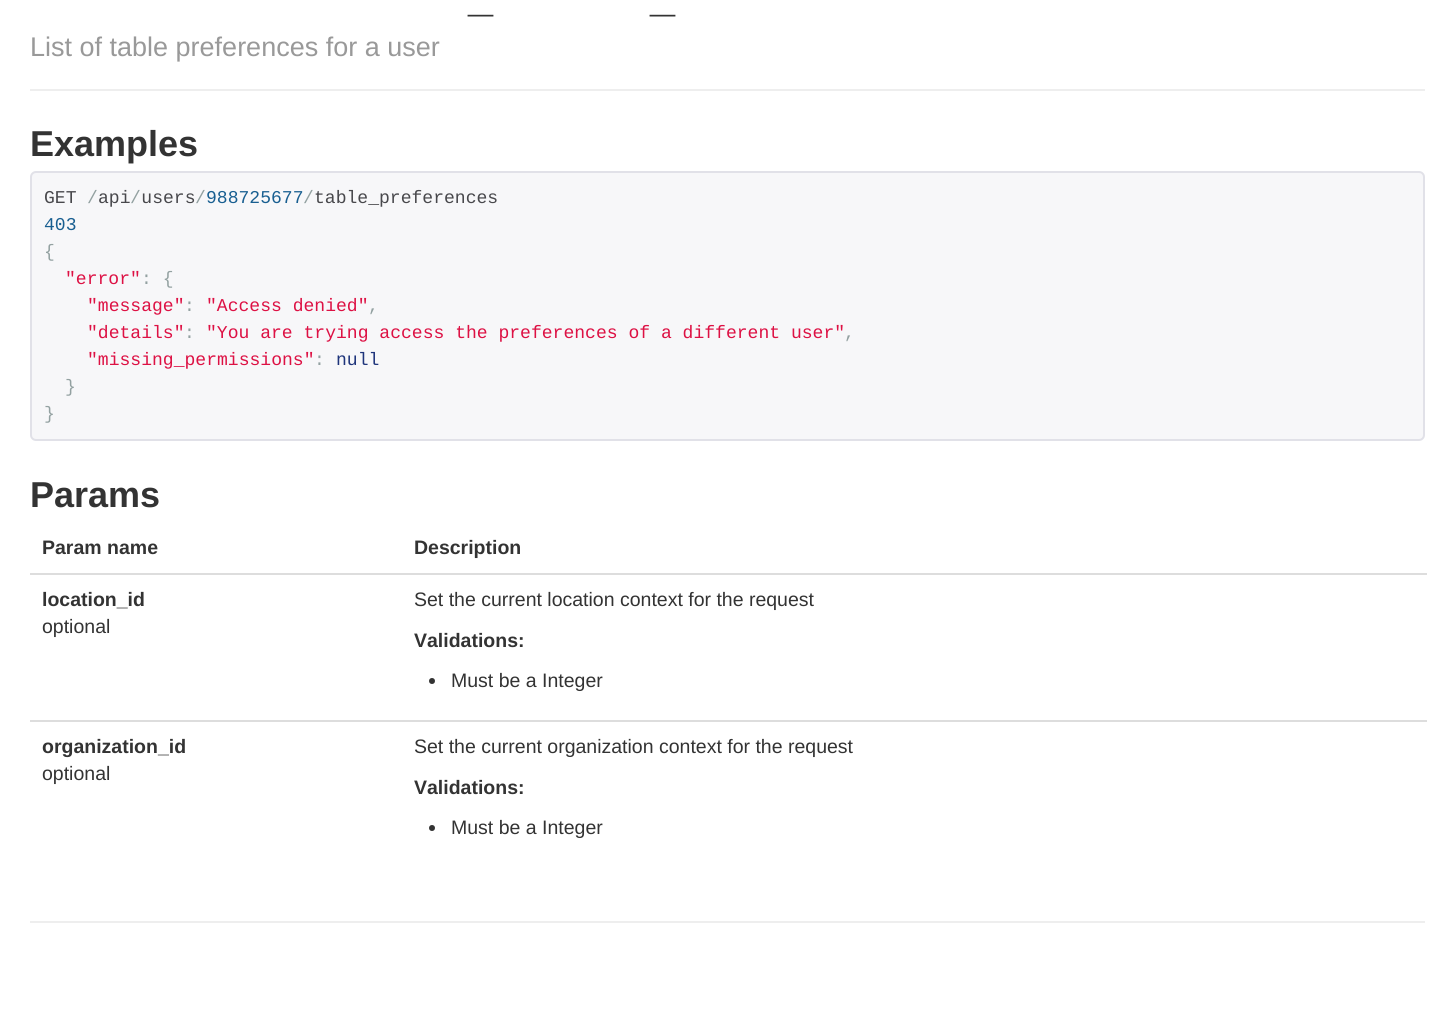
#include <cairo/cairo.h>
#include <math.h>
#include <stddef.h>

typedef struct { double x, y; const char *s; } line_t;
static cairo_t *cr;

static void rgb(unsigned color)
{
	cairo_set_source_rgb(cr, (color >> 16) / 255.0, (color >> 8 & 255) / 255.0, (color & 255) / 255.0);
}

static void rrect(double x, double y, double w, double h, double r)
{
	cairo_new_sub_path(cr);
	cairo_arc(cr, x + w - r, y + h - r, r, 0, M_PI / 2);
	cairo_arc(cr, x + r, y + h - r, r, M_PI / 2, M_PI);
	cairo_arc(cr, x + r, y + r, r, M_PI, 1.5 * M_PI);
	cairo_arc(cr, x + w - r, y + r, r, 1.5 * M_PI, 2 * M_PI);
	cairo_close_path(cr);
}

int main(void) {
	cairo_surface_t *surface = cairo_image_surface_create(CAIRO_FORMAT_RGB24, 1454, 1010);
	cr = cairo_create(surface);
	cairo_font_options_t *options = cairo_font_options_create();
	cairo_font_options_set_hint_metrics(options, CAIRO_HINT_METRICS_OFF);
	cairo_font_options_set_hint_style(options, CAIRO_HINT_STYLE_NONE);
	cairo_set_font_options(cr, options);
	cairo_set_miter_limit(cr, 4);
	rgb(0xffffff);
	cairo_paint(cr);
	rgb(0xeeeeee);
	cairo_rectangle(cr, 30, 89, 1395, 2);
	cairo_fill(cr);
	rgb(0xf7f7f9);
	rrect(31, 172, 1393, 268, 5);
	cairo_fill_preserve(cr);
	rgb(0xe1e1e8);
	cairo_stroke(cr);
	rgb(0xdddddd);
	cairo_rectangle(cr, 30, 573, 1397, 2);
	cairo_fill(cr);
	rgb(0x333333);
	cairo_arc(cr, 432, 681, 3, 0, 2 * M_PI);
	cairo_fill(cr);
	rgb(0xdddddd);
	cairo_rectangle(cr, 30, 720, 1397, 2);
	cairo_fill(cr);
	rgb(0x333333);
	cairo_arc(cr, 432, 828, 3, 0, 2 * M_PI);
	cairo_fill(cr);
	rgb(0xeeeeee);
	cairo_rectangle(cr, 30, 921, 1395, 2);
	cairo_fill(cr);
	cairo_select_font_face(cr, "Liberation Sans", CAIRO_FONT_SLANT_NORMAL, CAIRO_FONT_WEIGHT_BOLD);
	cairo_set_font_size(cr, 45);
	rgb(0x333333);
	cairo_move_to(cr, 468, 11);
	cairo_show_text(cr, "_");
	cairo_move_to(cr, 650, 11);
	cairo_show_text(cr, "_");
	cairo_select_font_face(cr, "Liberation Sans", CAIRO_FONT_SLANT_NORMAL, CAIRO_FONT_WEIGHT_NORMAL);
	cairo_set_font_size(cr, 27);
	rgb(0x999999);
	cairo_move_to(cr, 30, 56);
	cairo_show_text(cr, "List of table preferences for a user");
	cairo_select_font_face(cr, "Liberation Sans", CAIRO_FONT_SLANT_NORMAL, CAIRO_FONT_WEIGHT_BOLD);
	cairo_set_font_size(cr, 36);
	rgb(0x333333);
	cairo_move_to(cr, 30, 156);
	cairo_show_text(cr, "Examples");
	cairo_select_font_face(cr, "Liberation Mono", CAIRO_FONT_SLANT_NORMAL, CAIRO_FONT_WEIGHT_NORMAL);
	cairo_set_font_size(cr, 18.05);
	rgb(0x93a1a1);
	cairo_move_to(cr, 87, 203);
	cairo_show_text(cr, "/");
	rgb(0x48484c);
	cairo_move_to(cr, 98, 203);
	cairo_show_text(cr, "api users");
	cairo_move_to(cr, 44, 203);
	cairo_show_text(cr, "GET");
	rgb(0x93a1a1);
	cairo_move_to(cr, 130, 203);
	cairo_show_text(cr, "/");
	cairo_move_to(cr, 195, 203);
	cairo_show_text(cr, "/");
	rgb(0x195f91);
	cairo_move_to(cr, 206, 203);
	cairo_show_text(cr, "988725677");
	rgb(0x93a1a1);
	cairo_move_to(cr, 303, 203);
	cairo_show_text(cr, "/");
	rgb(0x48484c);
	cairo_move_to(cr, 314, 203);
	cairo_show_text(cr, "table_preferences");
	rgb(0x195f91);
	cairo_move_to(cr, 44, 230);
	cairo_show_text(cr, "403");
	rgb(0x93a1a1);
	cairo_move_to(cr, 44, 257);
	cairo_show_text(cr, "{");
	rgb(0xdd1144);
	cairo_move_to(cr, 65, 284);
	cairo_show_text(cr, "\"error\"");
	rgb(0x93a1a1);
	cairo_move_to(cr, 141, 284);
	cairo_show_text(cr, ": {");
	rgb(0xdd1144);
	cairo_move_to(cr, 87, 311);
	cairo_show_text(cr, "\"message\"");
	rgb(0x93a1a1);
	cairo_move_to(cr, 184, 311);
	cairo_show_text(cr, ":");
	rgb(0xdd1144);
	cairo_move_to(cr, 206, 311);
	cairo_show_text(cr, "\"Access denied\"");
	rgb(0x93a1a1);
	cairo_move_to(cr, 368, 311);
	cairo_show_text(cr, ",");
	rgb(0xdd1144);
	cairo_move_to(cr, 87, 338);
	cairo_show_text(cr, "\"details\"");
	rgb(0x93a1a1);
	cairo_move_to(cr, 184, 338);
	cairo_show_text(cr, ":");
	rgb(0xdd1144);
	cairo_move_to(cr, 206, 338);
	cairo_show_text(cr, "\"You are trying access the preferences of a different user\"");
	rgb(0x93a1a1);
	cairo_move_to(cr, 844, 338);
	cairo_show_text(cr, ",");
	rgb(0xdd1144);
	cairo_move_to(cr, 87, 365);
	cairo_show_text(cr, "\"missing_permissions\"");
	rgb(0x93a1a1);
	cairo_move_to(cr, 314, 365);
	cairo_show_text(cr, ":");
	rgb(0x1e347b);
	cairo_move_to(cr, 336, 365);
	cairo_show_text(cr, "null");
	rgb(0x93a1a1);
	cairo_move_to(cr, 65, 392);
	cairo_show_text(cr, "}");
	cairo_move_to(cr, 44, 419);
	cairo_show_text(cr, "}");
	cairo_select_font_face(cr, "Liberation Sans", CAIRO_FONT_SLANT_NORMAL, CAIRO_FONT_WEIGHT_BOLD);
	cairo_set_font_size(cr, 36);
	rgb(0x333333);
	cairo_move_to(cr, 30, 507);
	cairo_show_text(cr, "Params");
	cairo_set_font_size(cr, 19.5);
	{
		static const line_t items[] = {
			{42, 554, "Param name"},
			{414, 554, "Description"},
			{42, 606, "location_id"},
		};
		for (size_t i = 0; i < sizeof items / sizeof *items; i++) {
			cairo_move_to(cr, items[i].x, items[i].y);
			cairo_show_text(cr, items[i].s);
		}
	}
	cairo_select_font_face(cr, "Liberation Sans", CAIRO_FONT_SLANT_NORMAL, CAIRO_FONT_WEIGHT_NORMAL);
	cairo_move_to(cr, 42, 633);
	cairo_show_text(cr, "optional");
	cairo_move_to(cr, 414, 606);
	cairo_show_text(cr, "Set the current location context for the request");
	cairo_select_font_face(cr, "Liberation Sans", CAIRO_FONT_SLANT_NORMAL, CAIRO_FONT_WEIGHT_BOLD);
	cairo_move_to(cr, 414, 647);
	cairo_show_text(cr, "Validations:");
	cairo_select_font_face(cr, "Liberation Sans", CAIRO_FONT_SLANT_NORMAL, CAIRO_FONT_WEIGHT_NORMAL);
	cairo_move_to(cr, 451, 687);
	cairo_show_text(cr, "Must be a Integer");
	cairo_select_font_face(cr, "Liberation Sans", CAIRO_FONT_SLANT_NORMAL, CAIRO_FONT_WEIGHT_BOLD);
	cairo_move_to(cr, 42, 753);
	cairo_show_text(cr, "organization_id");
	cairo_select_font_face(cr, "Liberation Sans", CAIRO_FONT_SLANT_NORMAL, CAIRO_FONT_WEIGHT_NORMAL);
	cairo_move_to(cr, 42, 780);
	cairo_show_text(cr, "optional");
	cairo_move_to(cr, 414, 753);
	cairo_show_text(cr, "Set the current organization context for the request");
	cairo_select_font_face(cr, "Liberation Sans", CAIRO_FONT_SLANT_NORMAL, CAIRO_FONT_WEIGHT_BOLD);
	cairo_move_to(cr, 414, 794);
	cairo_show_text(cr, "Validations:");
	cairo_select_font_face(cr, "Liberation Sans", CAIRO_FONT_SLANT_NORMAL, CAIRO_FONT_WEIGHT_NORMAL);
	cairo_move_to(cr, 451, 834);
	cairo_show_text(cr, "Must be a Integer");
	cairo_surface_write_to_png(surface, "page.png");
	cairo_font_options_destroy(options);
	cairo_destroy(cr);
	cairo_surface_destroy(surface);
	return 0;
}
